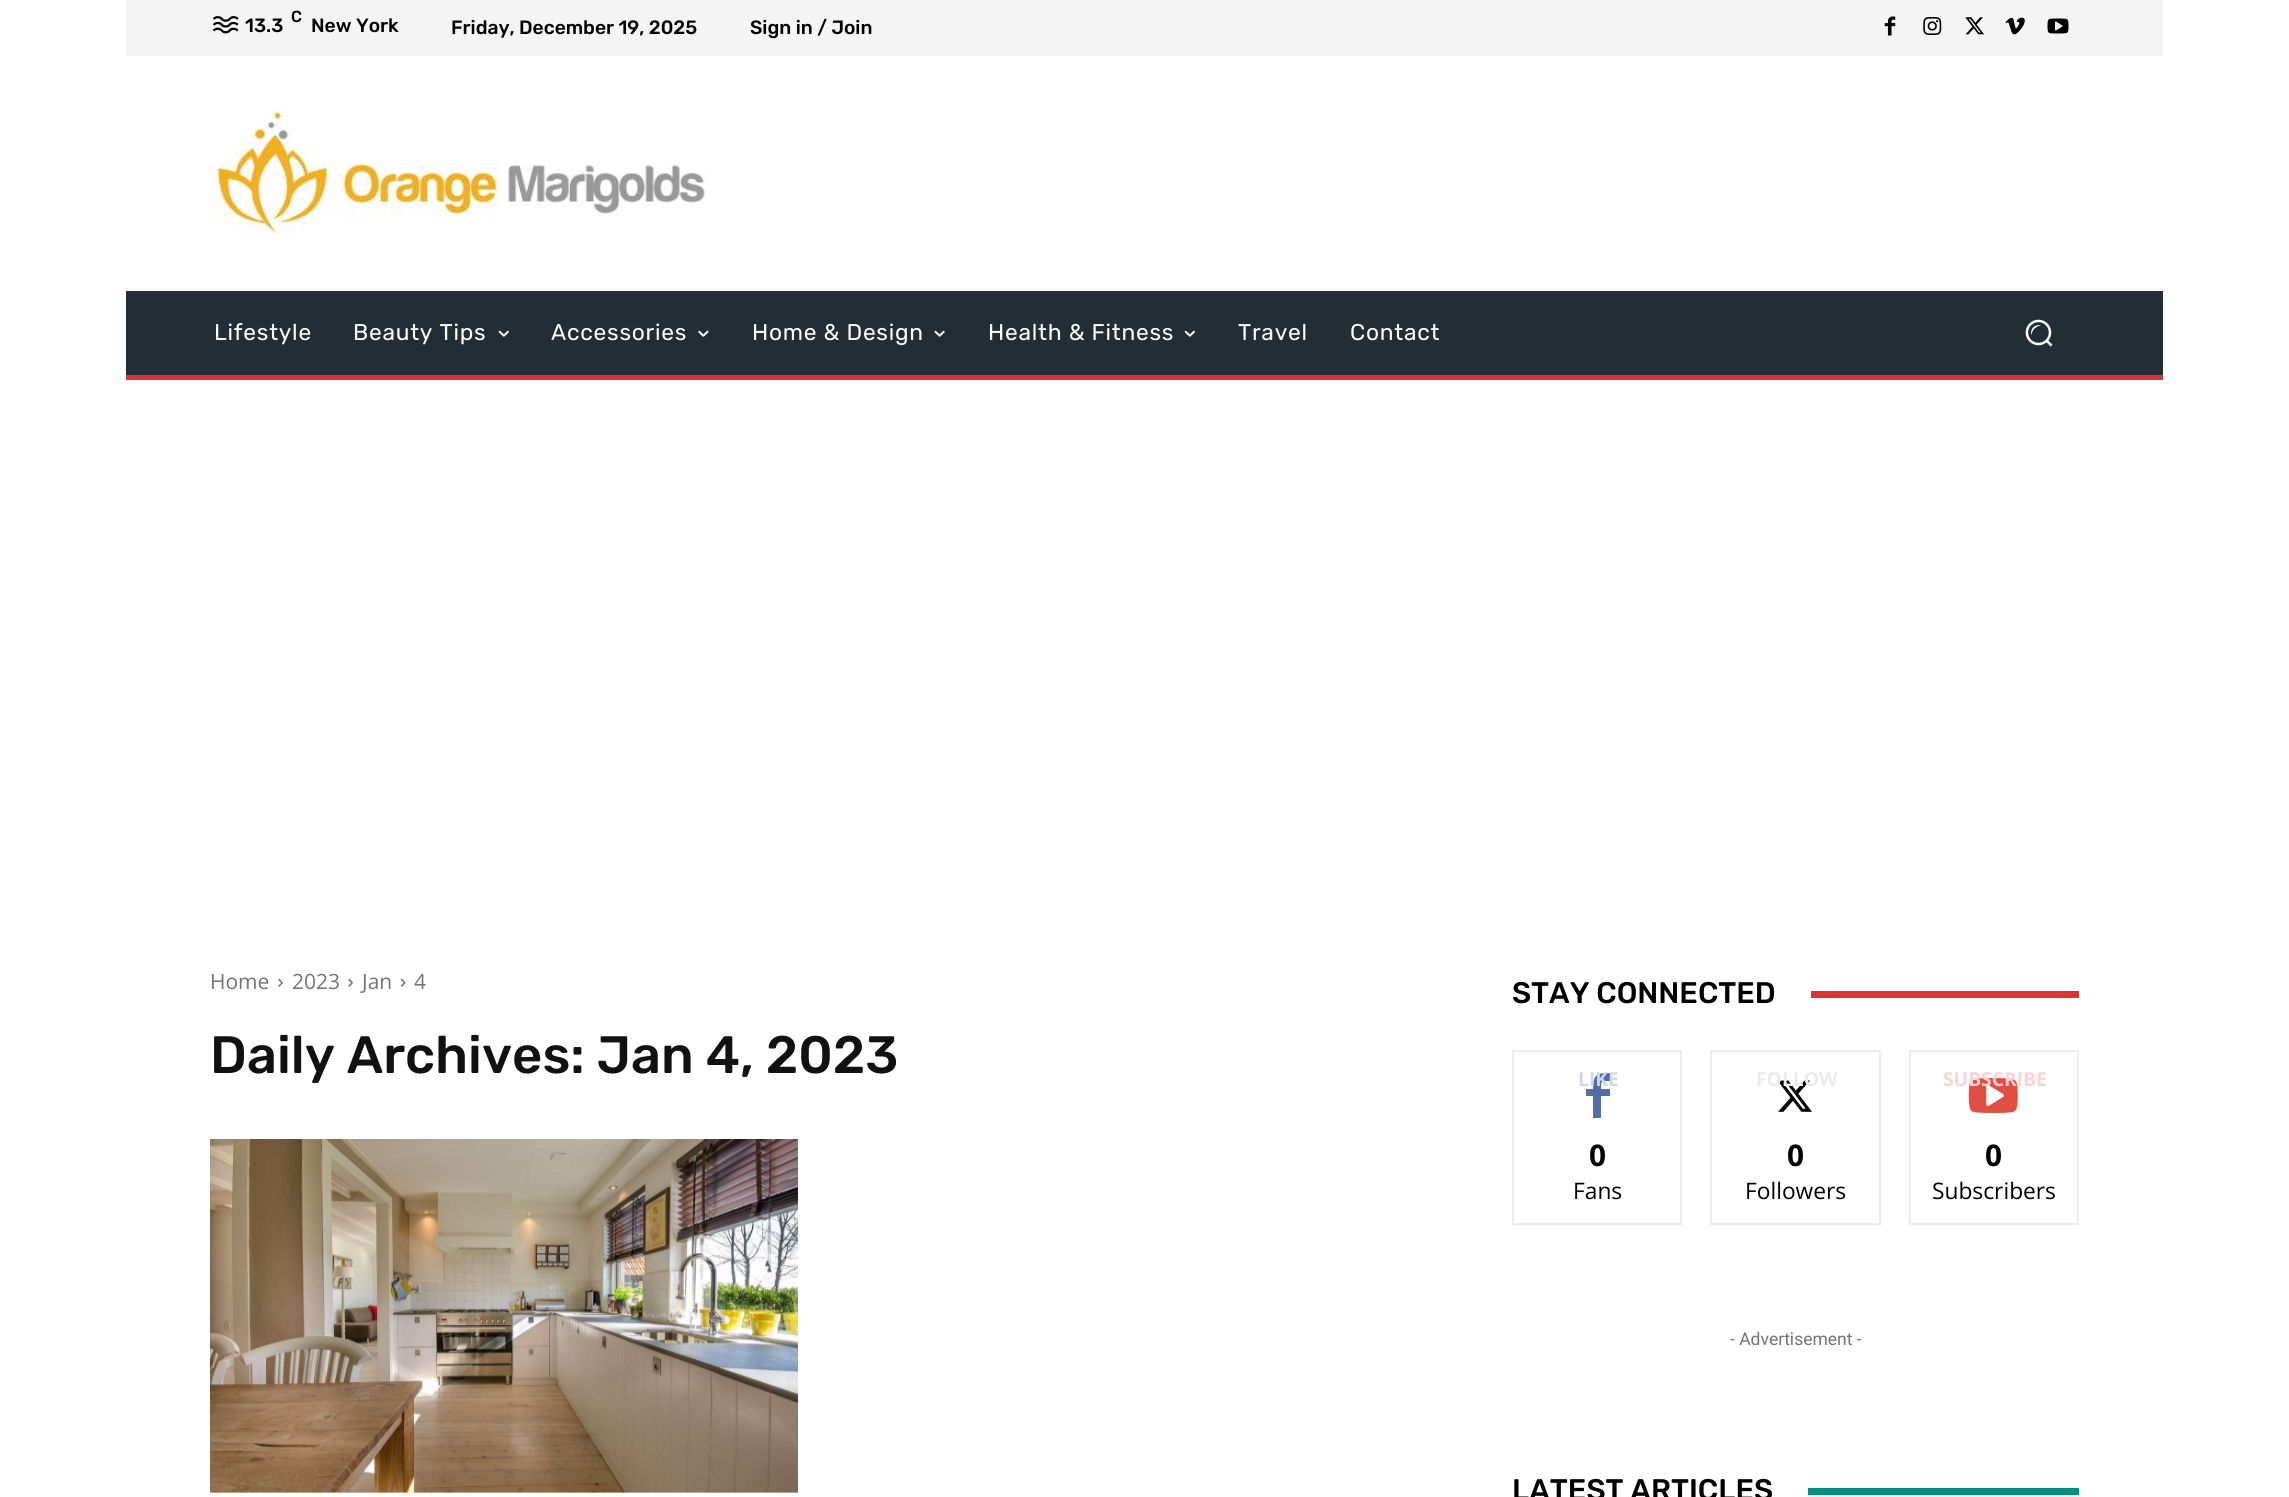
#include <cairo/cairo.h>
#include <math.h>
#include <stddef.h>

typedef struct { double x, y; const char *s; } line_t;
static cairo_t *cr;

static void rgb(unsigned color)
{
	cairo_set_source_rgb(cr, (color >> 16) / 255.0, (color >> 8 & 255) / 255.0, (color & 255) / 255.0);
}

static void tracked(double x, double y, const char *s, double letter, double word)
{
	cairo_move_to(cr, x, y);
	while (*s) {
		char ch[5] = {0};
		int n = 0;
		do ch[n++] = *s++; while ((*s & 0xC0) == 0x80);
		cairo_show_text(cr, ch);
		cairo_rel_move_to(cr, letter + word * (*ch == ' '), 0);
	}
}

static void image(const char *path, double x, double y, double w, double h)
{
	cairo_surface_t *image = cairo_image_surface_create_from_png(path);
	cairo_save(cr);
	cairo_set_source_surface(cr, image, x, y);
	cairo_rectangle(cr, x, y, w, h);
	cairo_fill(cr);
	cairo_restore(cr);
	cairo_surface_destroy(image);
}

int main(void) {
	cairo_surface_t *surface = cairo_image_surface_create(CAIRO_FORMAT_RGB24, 2289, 1497);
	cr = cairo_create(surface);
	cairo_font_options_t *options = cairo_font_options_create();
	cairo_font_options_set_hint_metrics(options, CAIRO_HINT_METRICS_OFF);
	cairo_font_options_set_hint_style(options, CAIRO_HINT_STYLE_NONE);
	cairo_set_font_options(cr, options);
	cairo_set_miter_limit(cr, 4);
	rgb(0xffffff);
	cairo_paint(cr);
	rgb(0xf4f4f4);
	cairo_rectangle(cr, 126, 0, 2037, 56);
	cairo_fill(cr);
	image("img/1.png", 212, 16, 27, 18);
	image("img/2.png", 1884, 16, 12, 20);
	image("img/3.png", 1923, 17, 19, 18);
	image("img/4.png", 1965, 17, 19, 18);
	image("img/5.png", 2005, 17, 20, 18);
	image("img/6.png", 2047, 18, 22, 16);
	image("img/7.png", 210, 109, 498, 127);
	rgb(0x232d35);
	cairo_rectangle(cr, 126, 291, 2037, 84);
	cairo_fill(cr);
	image("img/8.png", 498, 330, 11, 7);
	image("img/9.png", 698, 330, 11, 7);
	image("img/10.png", 934, 330, 11, 7);
	image("img/8.png", 1184, 330, 11, 7);
	image("img/11.png", 2025, 319, 28, 28);
	rgb(0xdd3333);
	cairo_rectangle(cr, 126, 375, 2037, 5);
	cairo_fill(cr);
	image("img/12.png", 278, 978, 5, 9);
	image("img/12.png", 348, 978, 5, 9);
	image("img/13.png", 400, 978, 6, 9);
	image("img/14.png", 210, 1139, 588, 354);
	cairo_rectangle(cr, 1811, 991, 268, 7);
	cairo_fill(cr);
	cairo_rectangle(cr, 1513, 1051, 168, 173);
	rgb(0xededed);
	cairo_stroke(cr);
	rgb(0x516eab);
	cairo_new_path(cr);
	cairo_move_to(cr, 1610, 1081);
	cairo_curve_to(cr, 1601, 1081, 1601, 1080, 1601, 1089);
	cairo_line_to(cr, 1610, 1089);
	cairo_line_to(cr, 1610, 1096);
	cairo_line_to(cr, 1601, 1096);
	cairo_line_to(cr, 1601, 1118);
	cairo_line_to(cr, 1593, 1118);
	cairo_line_to(cr, 1593, 1096);
	cairo_line_to(cr, 1586, 1096);
	cairo_line_to(cr, 1586, 1089);
	cairo_line_to(cr, 1593, 1089);
	cairo_curve_to(cr, 1593, 1074, 1597, 1073, 1610, 1073);
	cairo_close_path(cr);
	cairo_fill(cr);
	cairo_rectangle(cr, 1711, 1051, 169, 173);
	rgb(0xededed);
	cairo_stroke(cr);
	image("img/15.png", 1777, 1080, 35, 32);
	cairo_rectangle(cr, 1910, 1051, 168, 173);
	cairo_stroke(cr);
	image("img/16.png", 1968, 1078, 50, 35);
	rgb(0x008d7f);
	cairo_rectangle(cr, 1808, 1488, 271, 7);
	cairo_fill(cr);
	cairo_select_font_face(cr, "Rubik Medium", CAIRO_FONT_SLANT_NORMAL, CAIRO_FONT_WEIGHT_NORMAL);
	cairo_set_font_size(cr, 16);
	rgb(0x000000);
	cairo_move_to(cr, 291, 22);
	cairo_show_text(cr, "C");
	cairo_set_font_size(cr, 19.25);
	{
		static const line_t items[] = {
			{245, 32, "13.3"},
			{311, 32, "New York"},
			{451, 34, "Friday, December 19, 2025"},
			{750, 34, "Sign in / Join"},
		};
		for (size_t i = 0; i < sizeof items / sizeof *items; i++) {
			cairo_move_to(cr, items[i].x, items[i].y);
			cairo_show_text(cr, items[i].s);
		}
	}
	cairo_select_font_face(cr, "Rubik", CAIRO_FONT_SLANT_NORMAL, CAIRO_FONT_WEIGHT_NORMAL);
	cairo_set_font_size(cr, 22.75);
	rgb(0xffffff);
	{
		static const line_t items[] = {
			{214, 340, "Lifestyle"},
			{353, 340, "Beauty Tips"},
			{551, 340, "Accessories"},
			{752, 340, "Home & Design"},
			{988, 340, "Health & Fitness"},
			{1238, 340, "Travel"},
			{1350, 340, "Contact"},
		};
		for (size_t i = 0; i < sizeof items / sizeof *items; i++) {
			tracked(items[i].x, items[i].y, items[i].s, 0.75, 0);
		}
	}
	cairo_select_font_face(cr, "Open Sans", CAIRO_FONT_SLANT_NORMAL, CAIRO_FONT_WEIGHT_NORMAL);
	cairo_set_font_size(cr, 21);
	rgb(0x747474);
	{
		static const line_t items[] = {
			{210, 989, "Home"},
			{292, 989, "2023"},
			{362, 989, "Jan"},
			{414, 989, "4"},
		};
		for (size_t i = 0; i < sizeof items / sizeof *items; i++) {
			cairo_move_to(cr, items[i].x, items[i].y);
			cairo_show_text(cr, items[i].s);
		}
	}
	cairo_select_font_face(cr, "Rubik Medium", CAIRO_FONT_SLANT_NORMAL, CAIRO_FONT_WEIGHT_NORMAL);
	cairo_set_font_size(cr, 52.5);
	rgb(0x111111);
	cairo_move_to(cr, 210, 1073);
	cairo_show_text(cr, "Daily Archives: Jan 4, 2023");
	cairo_set_font_size(cr, 29.75);
	rgb(0x000000);
	cairo_move_to(cr, 1512, 1003);
	cairo_show_text(cr, "STAY CONNECTED");
	cairo_select_font_face(cr, "Open Sans", CAIRO_FONT_SLANT_NORMAL, CAIRO_FONT_WEIGHT_BOLD);
	cairo_set_font_size(cr, 19.25);
	rgb(0xd0d8e8);
	cairo_move_to(cr, 1578, 1086);
	cairo_show_text(cr, "LIKE");
	cairo_set_font_size(cr, 29.75);
	rgb(0x000000);
	cairo_move_to(cr, 1589, 1166);
	cairo_show_text(cr, "0");
	cairo_select_font_face(cr, "Open Sans", CAIRO_FONT_SLANT_NORMAL, CAIRO_FONT_WEIGHT_NORMAL);
	cairo_set_font_size(cr, 22.75);
	cairo_move_to(cr, 1573, 1199);
	cairo_show_text(cr, "Fans");
	cairo_select_font_face(cr, "Open Sans", CAIRO_FONT_SLANT_NORMAL, CAIRO_FONT_WEIGHT_BOLD);
	cairo_set_font_size(cr, 19.25);
	rgb(0xebebeb);
	cairo_move_to(cr, 1756, 1086);
	cairo_show_text(cr, "FOLLOW");
	cairo_set_font_size(cr, 29.75);
	rgb(0x000000);
	cairo_move_to(cr, 1787, 1166);
	cairo_show_text(cr, "0");
	cairo_select_font_face(cr, "Open Sans", CAIRO_FONT_SLANT_NORMAL, CAIRO_FONT_WEIGHT_NORMAL);
	cairo_set_font_size(cr, 22.75);
	cairo_move_to(cr, 1745, 1199);
	cairo_show_text(cr, "Followers");
	cairo_select_font_face(cr, "Open Sans", CAIRO_FONT_SLANT_NORMAL, CAIRO_FONT_WEIGHT_BOLD);
	cairo_set_font_size(cr, 19.25);
	rgb(0xf8d4d2);
	cairo_move_to(cr, 1943, 1086);
	cairo_show_text(cr, "SUBSCRIBE");
	cairo_set_font_size(cr, 29.75);
	rgb(0x000000);
	cairo_move_to(cr, 1985, 1166);
	cairo_show_text(cr, "0");
	cairo_select_font_face(cr, "Open Sans", CAIRO_FONT_SLANT_NORMAL, CAIRO_FONT_WEIGHT_NORMAL);
	cairo_set_font_size(cr, 22.75);
	cairo_move_to(cr, 1932, 1199);
	cairo_show_text(cr, "Subscribers");
	cairo_select_font_face(cr, "Roboto", CAIRO_FONT_SLANT_NORMAL, CAIRO_FONT_WEIGHT_NORMAL);
	cairo_set_font_size(cr, 17.5);
	rgb(0x747474);
	cairo_move_to(cr, 1730, 1345);
	cairo_show_text(cr, "- Advertisement -");
	cairo_select_font_face(cr, "Rubik Medium", CAIRO_FONT_SLANT_NORMAL, CAIRO_FONT_WEIGHT_NORMAL);
	cairo_set_font_size(cr, 29.75);
	rgb(0x000000);
	cairo_move_to(cr, 1512, 1500);
	cairo_show_text(cr, "LATEST ARTICLES");
	cairo_surface_write_to_png(surface, "page.png");
	cairo_font_options_destroy(options);
	cairo_destroy(cr);
	cairo_surface_destroy(surface);
	return 0;
}
